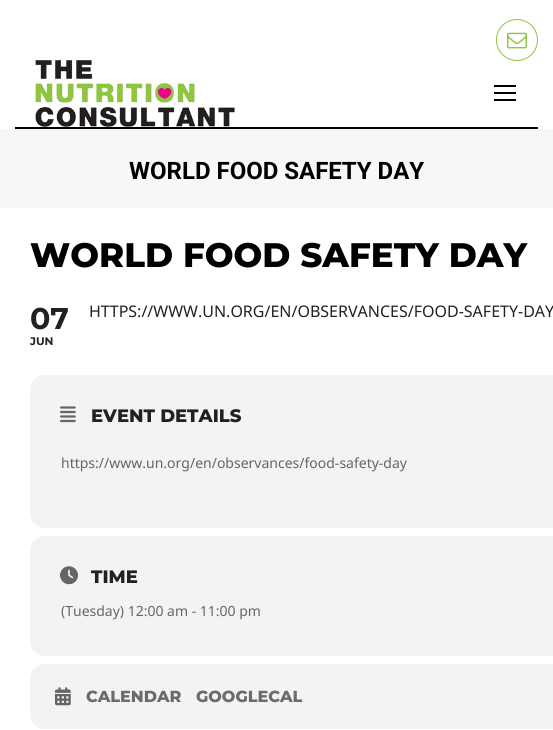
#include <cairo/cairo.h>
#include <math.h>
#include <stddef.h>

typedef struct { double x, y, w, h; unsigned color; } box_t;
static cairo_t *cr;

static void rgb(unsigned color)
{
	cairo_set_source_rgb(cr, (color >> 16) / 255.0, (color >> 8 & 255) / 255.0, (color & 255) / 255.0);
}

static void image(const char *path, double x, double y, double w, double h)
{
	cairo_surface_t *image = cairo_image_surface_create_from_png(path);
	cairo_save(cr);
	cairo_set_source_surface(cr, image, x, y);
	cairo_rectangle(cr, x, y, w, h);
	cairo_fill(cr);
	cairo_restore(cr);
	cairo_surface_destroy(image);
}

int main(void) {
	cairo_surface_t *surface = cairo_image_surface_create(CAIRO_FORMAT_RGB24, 553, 730);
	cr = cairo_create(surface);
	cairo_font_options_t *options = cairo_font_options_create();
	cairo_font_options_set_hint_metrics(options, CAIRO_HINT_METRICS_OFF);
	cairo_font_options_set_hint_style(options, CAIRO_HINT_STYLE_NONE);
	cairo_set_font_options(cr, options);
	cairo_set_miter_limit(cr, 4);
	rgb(0xffffff);
	cairo_paint(cr);
	cairo_arc(cr, 517, 40, 20.5, 0, 2 * M_PI);
	rgb(0x8fc542);
	cairo_set_line_width(cr, 1);
	cairo_stroke(cr);
	image("img/1.png", 507, 32, 20, 17);
	rgb(0x000000);
	cairo_rectangle(cr, 15, 127, 523, 2);
	cairo_fill(cr);
	image("img/2.png", 35, 60, 200, 67);
	{
		static const box_t items[] = {
			{494, 85, 22, 2, 0x000000},
			{494, 92, 22, 2, 0x000000},
			{494, 99, 22, 2, 0x000000},
			{0, 129, 553, 79, 0xf7f7f7},
		};
		for (size_t i = 0; i < sizeof items / sizeof *items; i++) {
			rgb(items[i].color);
			cairo_rectangle(cr, items[i].x, items[i].y, items[i].w, items[i].h);
			cairo_fill(cr);
		}
	}
	rgb(0xf3f3f3);
	cairo_new_path(cr);
	cairo_move_to(cr, 45, 375);
	cairo_line_to(cr, 553, 375);
	cairo_line_to(cr, 553, 528);
	cairo_line_to(cr, 45, 528);
	cairo_curve_to(cr, 36.5, 528, 30, 521.5, 30, 513);
	cairo_line_to(cr, 30, 390);
	cairo_curve_to(cr, 30, 381.5, 36.5, 375, 45, 375);
	cairo_close_path(cr);
	cairo_fill(cr);
	image("img/3.png", 60, 406, 16, 17);
	cairo_new_path(cr);
	cairo_move_to(cr, 45, 536);
	cairo_line_to(cr, 553, 536);
	cairo_line_to(cr, 553, 656);
	cairo_line_to(cr, 45, 656);
	cairo_curve_to(cr, 36.5, 656, 30, 649.5, 30, 641);
	cairo_line_to(cr, 30, 551);
	cairo_curve_to(cr, 30, 542.5, 36.5, 536, 45, 536);
	cairo_close_path(cr);
	cairo_fill(cr);
	image("img/4.png", 60, 566, 18, 19);
	cairo_new_path(cr);
	cairo_move_to(cr, 45, 664);
	cairo_line_to(cr, 553, 664);
	cairo_line_to(cr, 553, 729);
	cairo_line_to(cr, 45, 729);
	cairo_curve_to(cr, 36.5, 729, 30, 722.5, 30, 714);
	cairo_line_to(cr, 30, 679);
	cairo_curve_to(cr, 30, 670.5, 36.5, 664, 45, 664);
	cairo_close_path(cr);
	cairo_fill(cr);
	image("img/5.png", 55, 687, 16, 19);
	cairo_select_font_face(cr, "Roboto", CAIRO_FONT_SLANT_NORMAL, CAIRO_FONT_WEIGHT_BOLD);
	cairo_set_font_size(cr, 24);
	rgb(0x000000);
	cairo_move_to(cr, 129, 179);
	cairo_show_text(cr, "WORLD FOOD SAFETY DAY");
	cairo_select_font_face(cr, "Montserrat ExtraBold", CAIRO_FONT_SLANT_NORMAL, CAIRO_FONT_WEIGHT_NORMAL);
	cairo_set_font_size(cr, 34);
	cairo_move_to(cr, 30, 267);
	cairo_show_text(cr, "WORLD FOOD SAFETY DAY");
	cairo_select_font_face(cr, "Montserrat", CAIRO_FONT_SLANT_NORMAL, CAIRO_FONT_WEIGHT_BOLD);
	cairo_set_font_size(cr, 30);
	rgb(0x202124);
	cairo_move_to(cr, 30, 329);
	cairo_show_text(cr, "07");
	cairo_set_font_size(cr, 11);
	cairo_move_to(cr, 30, 345);
	cairo_show_text(cr, "JUN");
	cairo_select_font_face(cr, "Noto Sans", CAIRO_FONT_SLANT_NORMAL, CAIRO_FONT_WEIGHT_NORMAL);
	cairo_set_font_size(cr, 16);
	cairo_move_to(cr, 89, 317);
	cairo_show_text(cr, "HTTPS://WWW.UN.ORG/EN/OBSERVANCES/FOOD-SAFETY-DAY");
	cairo_select_font_face(cr, "Montserrat ExtraBold", CAIRO_FONT_SLANT_NORMAL, CAIRO_FONT_WEIGHT_NORMAL);
	cairo_set_font_size(cr, 18);
	cairo_move_to(cr, 91, 422);
	cairo_show_text(cr, "EVENT DETAILS");
	cairo_select_font_face(cr, "Noto Sans", CAIRO_FONT_SLANT_NORMAL, CAIRO_FONT_WEIGHT_NORMAL);
	cairo_set_font_size(cr, 14);
	rgb(0x656565);
	cairo_move_to(cr, 61, 468);
	cairo_show_text(cr, "https://www.un.org/en/observances/food-safety-day");
	cairo_select_font_face(cr, "Montserrat ExtraBold", CAIRO_FONT_SLANT_NORMAL, CAIRO_FONT_WEIGHT_NORMAL);
	cairo_set_font_size(cr, 18);
	rgb(0x202124);
	cairo_move_to(cr, 91, 583);
	cairo_show_text(cr, "TIME");
	cairo_select_font_face(cr, "Noto Sans", CAIRO_FONT_SLANT_NORMAL, CAIRO_FONT_WEIGHT_NORMAL);
	cairo_set_font_size(cr, 14);
	rgb(0x656565);
	cairo_move_to(cr, 61, 616);
	cairo_show_text(cr, "(Tuesday) 12:00 am - 11:00 pm");
	cairo_select_font_face(cr, "Montserrat ExtraBold", CAIRO_FONT_SLANT_NORMAL, CAIRO_FONT_WEIGHT_NORMAL);
	cairo_set_font_size(cr, 16);
	rgb(0x6b6b6b);
	cairo_move_to(cr, 86, 702);
	cairo_show_text(cr, "CALENDAR");
	cairo_move_to(cr, 196, 702);
	cairo_show_text(cr, "GOOGLECAL");
	cairo_surface_write_to_png(surface, "page.png");
	cairo_font_options_destroy(options);
	cairo_destroy(cr);
	cairo_surface_destroy(surface);
	return 0;
}
